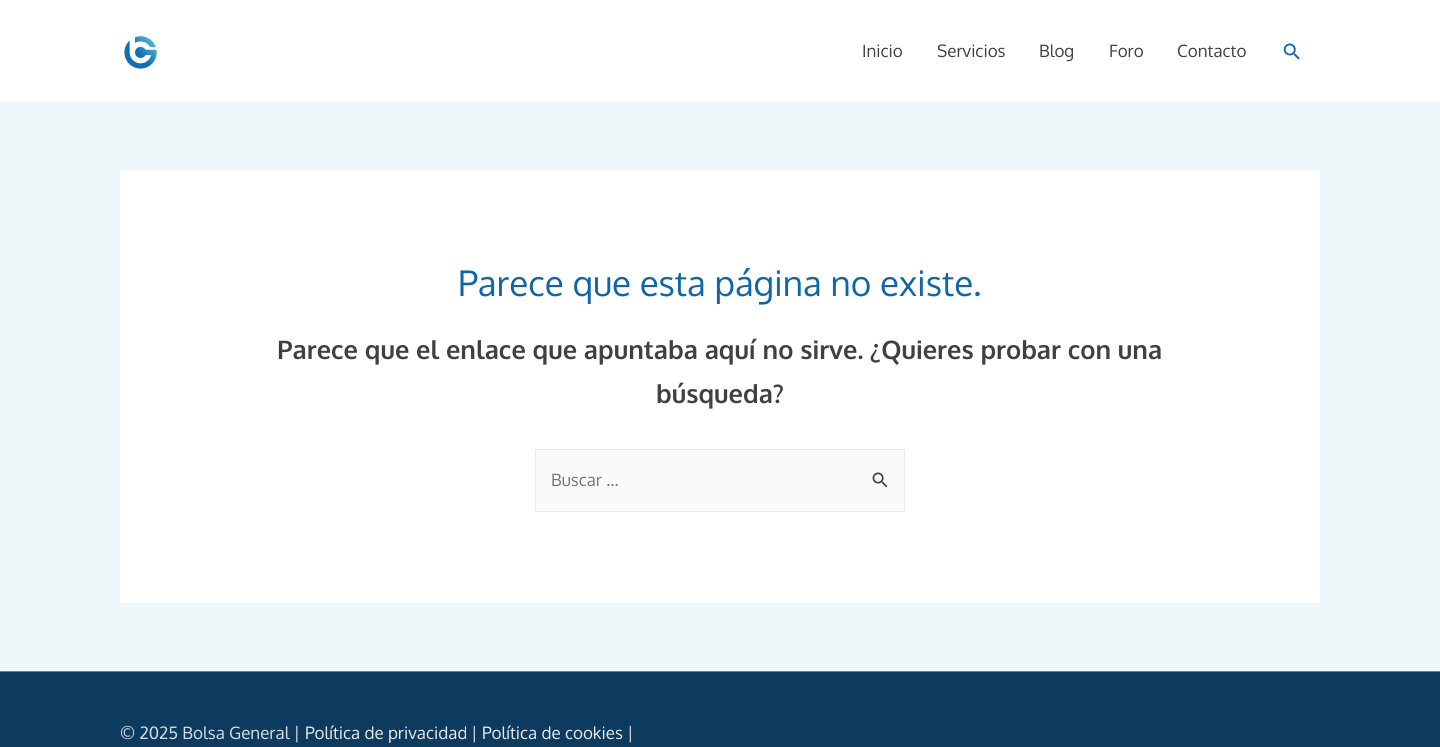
#include <cairo/cairo.h>
#include <math.h>
#include <stddef.h>

typedef struct { double x, y; const char *s; } line_t;
static cairo_t *cr;

static void rgb(unsigned color)
{
	cairo_set_source_rgb(cr, (color >> 16) / 255.0, (color >> 8 & 255) / 255.0, (color & 255) / 255.0);
}

static void rrect(double x, double y, double w, double h, double r)
{
	cairo_new_sub_path(cr);
	cairo_arc(cr, x + w - r, y + h - r, r, 0, M_PI / 2);
	cairo_arc(cr, x + r, y + h - r, r, M_PI / 2, M_PI);
	cairo_arc(cr, x + r, y + r, r, M_PI, 1.5 * M_PI);
	cairo_arc(cr, x + w - r, y + r, r, 1.5 * M_PI, 2 * M_PI);
	cairo_close_path(cr);
}

static void image(const char *path, double x, double y, double w, double h)
{
	cairo_surface_t *image = cairo_image_surface_create_from_png(path);
	cairo_save(cr);
	cairo_set_source_surface(cr, image, x, y);
	cairo_rectangle(cr, x, y, w, h);
	cairo_fill(cr);
	cairo_restore(cr);
	cairo_surface_destroy(image);
}

int main(void) {
	cairo_surface_t *surface = cairo_image_surface_create(CAIRO_FORMAT_RGB24, 1440, 747);
	cr = cairo_create(surface);
	cairo_font_options_t *options = cairo_font_options_create();
	cairo_font_options_set_hint_metrics(options, CAIRO_HINT_METRICS_OFF);
	cairo_font_options_set_hint_style(options, CAIRO_HINT_STYLE_NONE);
	cairo_set_font_options(cr, options);
	cairo_set_miter_limit(cr, 4);
	rgb(0xeef7fa);
	cairo_paint(cr);
	rgb(0xffffff);
	cairo_rectangle(cr, 0, 0, 1440, 102);
	cairo_fill(cr);
	image("img/1.png", 124, 36, 33, 33);
	image("img/2.png", 1283, 43, 17, 17);
	cairo_rectangle(cr, 120, 170, 1200, 433);
	cairo_fill(cr);
	rgb(0xfafafa);
	rrect(535.5, 449.5, 369, 62, 1.5);
	cairo_fill_preserve(cr);
	rgb(0xeaeaea);
	cairo_set_line_width(cr, 1);
	cairo_stroke(cr);
	image("img/3.png", 872, 472, 16, 16);
	rgb(0x7a7a7a);
	cairo_rectangle(cr, 0, 671, 1440, 1);
	cairo_fill(cr);
	rgb(0x0c3b5f);
	cairo_rectangle(cr, 0, 672, 1440, 75);
	cairo_fill(cr);
	cairo_select_font_face(cr, "Oxygen", CAIRO_FONT_SLANT_NORMAL, CAIRO_FONT_WEIGHT_NORMAL);
	cairo_set_font_size(cr, 17);
	rgb(0x404040);
	{
		static const line_t items[] = {
			{862, 57, "Inicio"},
			{937, 57, "Servicios"},
			{1039, 57, "Blog"},
			{1109, 57, "Foro"},
			{1177, 57, "Contacto"},
		};
		for (size_t i = 0; i < sizeof items / sizeof *items; i++) {
			cairo_move_to(cr, items[i].x, items[i].y);
			cairo_show_text(cr, items[i].s);
		}
	}
	cairo_set_font_size(cr, 35);
	rgb(0x0e66a9);
	cairo_move_to(cr, 458, 296);
	cairo_show_text(cr, "Parece que esta página no existe.");
	cairo_select_font_face(cr, "Oxygen", CAIRO_FONT_SLANT_NORMAL, CAIRO_FONT_WEIGHT_BOLD);
	cairo_set_font_size(cr, 25.5);
	rgb(0x404040);
	cairo_move_to(cr, 277, 359);
	cairo_show_text(cr, "Parece que el enlace que apuntaba aquí no sirve. ¿Quieres probar con una");
	cairo_move_to(cr, 656, 403);
	cairo_show_text(cr, "búsqueda?");
	cairo_select_font_face(cr, "Oxygen", CAIRO_FONT_SLANT_NORMAL, CAIRO_FONT_WEIGHT_NORMAL);
	cairo_set_font_size(cr, 17);
	rgb(0x757575);
	cairo_move_to(cr, 551, 486);
	cairo_show_text(cr, "Buscar …");
	rgb(0xd9dee0);
	cairo_move_to(cr, 120, 739);
	cairo_show_text(cr, "© 2025 Bolsa General |");
	rgb(0xeaeaea);
	cairo_move_to(cr, 305, 739);
	cairo_show_text(cr, "Política de privacidad");
	rgb(0xd9dee0);
	cairo_move_to(cr, 471, 739);
	cairo_show_text(cr, "|");
	rgb(0xeaeaea);
	cairo_move_to(cr, 482, 739);
	cairo_show_text(cr, "Política de cookies");
	rgb(0xd9dee0);
	cairo_move_to(cr, 627, 739);
	cairo_show_text(cr, "|");
	cairo_surface_write_to_png(surface, "page.png");
	cairo_font_options_destroy(options);
	cairo_destroy(cr);
	cairo_surface_destroy(surface);
	return 0;
}
